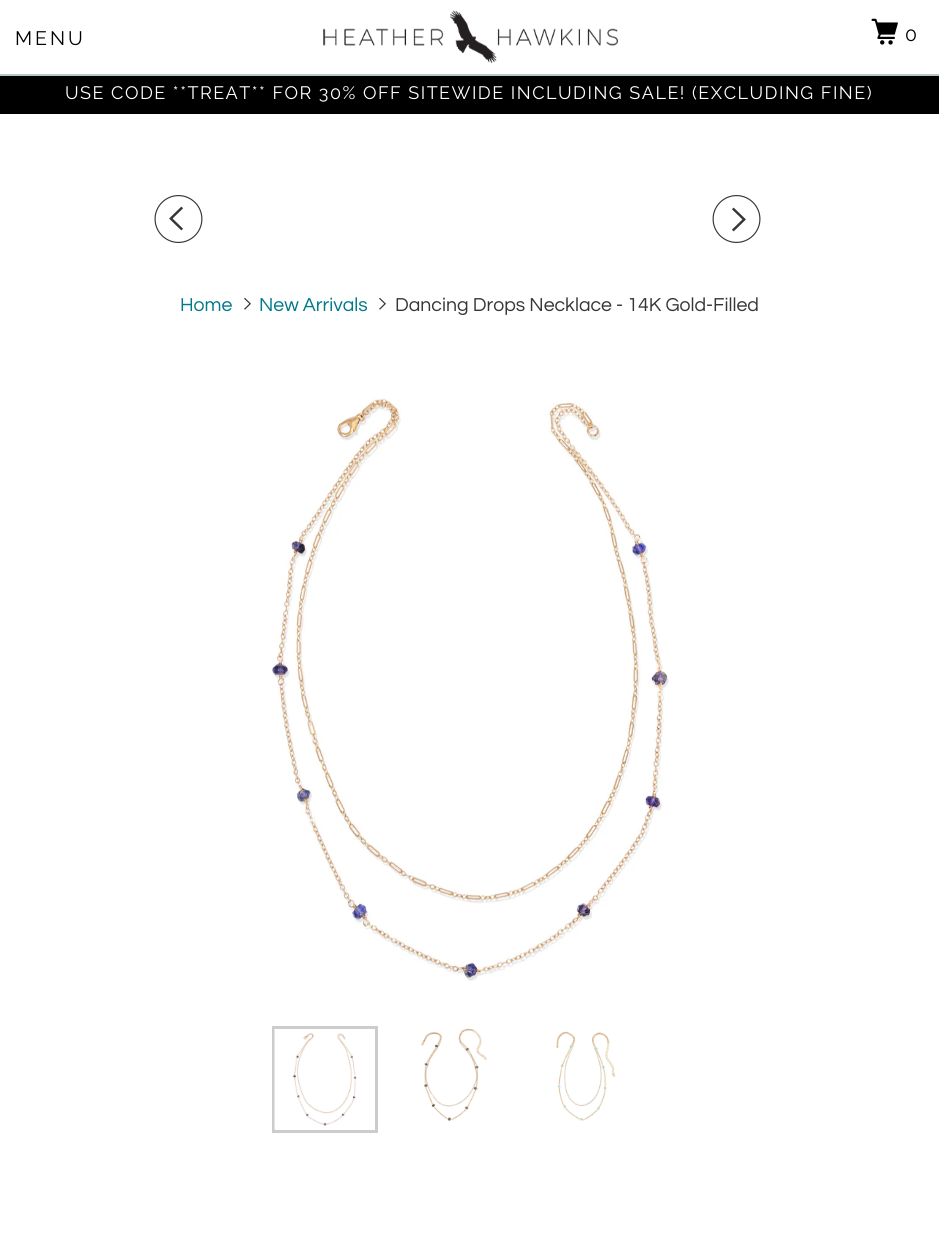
#include <cairo/cairo.h>
#include <math.h>
#include <stddef.h>

static cairo_t *cr;

static void rgb(unsigned color)
{
	cairo_set_source_rgb(cr, (color >> 16) / 255.0, (color >> 8 & 255) / 255.0, (color & 255) / 255.0);
}

static void tracked(double x, double y, const char *s, double letter, double word)
{
	cairo_move_to(cr, x, y);
	while (*s) {
		char ch[5] = {0};
		int n = 0;
		do ch[n++] = *s++; while ((*s & 0xC0) == 0x80);
		cairo_show_text(cr, ch);
		cairo_rel_move_to(cr, letter + word * (*ch == ' '), 0);
	}
}

static void image(const char *path, double x, double y, double w, double h)
{
	cairo_surface_t *image = cairo_image_surface_create_from_png(path);
	cairo_save(cr);
	cairo_set_source_surface(cr, image, x, y);
	cairo_rectangle(cr, x, y, w, h);
	cairo_fill(cr);
	cairo_restore(cr);
	cairo_surface_destroy(image);
}

int main(void) {
	cairo_surface_t *surface = cairo_image_surface_create(CAIRO_FORMAT_RGB24, 939, 1254);
	cr = cairo_create(surface);
	cairo_font_options_t *options = cairo_font_options_create();
	cairo_font_options_set_hint_metrics(options, CAIRO_HINT_METRICS_OFF);
	cairo_font_options_set_hint_style(options, CAIRO_HINT_STYLE_NONE);
	cairo_set_font_options(cr, options);
	cairo_set_miter_limit(cr, 4);
	rgb(0xffffff);
	cairo_paint(cr);
	rgb(0xb8c6c6);
	cairo_rectangle(cr, 0, 74, 939, 2);
	cairo_fill(cr);
	image("img/1.png", 323, 10, 295, 53);
	image("img/2.png", 871, 18, 27, 27);
	rgb(0x000000);
	cairo_rectangle(cr, 0, 76, 939, 38);
	cairo_fill(cr);
	image("img/3.png", 154, 195, 49, 48);
	image("img/4.png", 712, 195, 49, 48);
	image("img/5.png", 244, 297, 7, 13);
	image("img/5.png", 379, 297, 7, 13);
	image("img/6.png", 272, 398, 397, 583);
	cairo_rectangle(cr, 273.5, 1027.5, 103, 104);
	rgb(0xcccccc);
	cairo_set_line_width(cr, 3);
	cairo_stroke(cr);
	image("img/7.png", 274, 1029, 83, 101);
	image("img/8.png", 420, 1028, 67, 93);
	image("img/9.png", 556, 1031, 60, 90);
	cairo_select_font_face(cr, "Raleway", CAIRO_FONT_SLANT_NORMAL, CAIRO_FONT_WEIGHT_NORMAL);
	cairo_set_font_size(cr, 19.5);
	rgb(0x000000);
	tracked(15, 45, "MENU", 3, 0);
	tracked(905, 41, "0", 3, 0);
	cairo_set_font_size(cr, 18);
	rgb(0xffffff);
	tracked(65, 99, "USE CODE **TREAT** FOR 30% OFF SITEWIDE INCLUDING SALE! (EXCLUDING FINE)", 1.5, 0);
	cairo_select_font_face(cr, "Questrial", CAIRO_FONT_SLANT_NORMAL, CAIRO_FONT_WEIGHT_NORMAL);
	cairo_set_font_size(cr, 19.5);
	rgb(0x007a87);
	cairo_move_to(cr, 180, 311);
	cairo_show_text(cr, "Home");
	cairo_move_to(cr, 259, 311);
	cairo_show_text(cr, "New Arrivals");
	rgb(0x363636);
	cairo_move_to(cr, 395, 311);
	cairo_show_text(cr, "Dancing Drops Necklace - 14K Gold-Filled");
	cairo_surface_write_to_png(surface, "page.png");
	cairo_font_options_destroy(options);
	cairo_destroy(cr);
	cairo_surface_destroy(surface);
	return 0;
}
